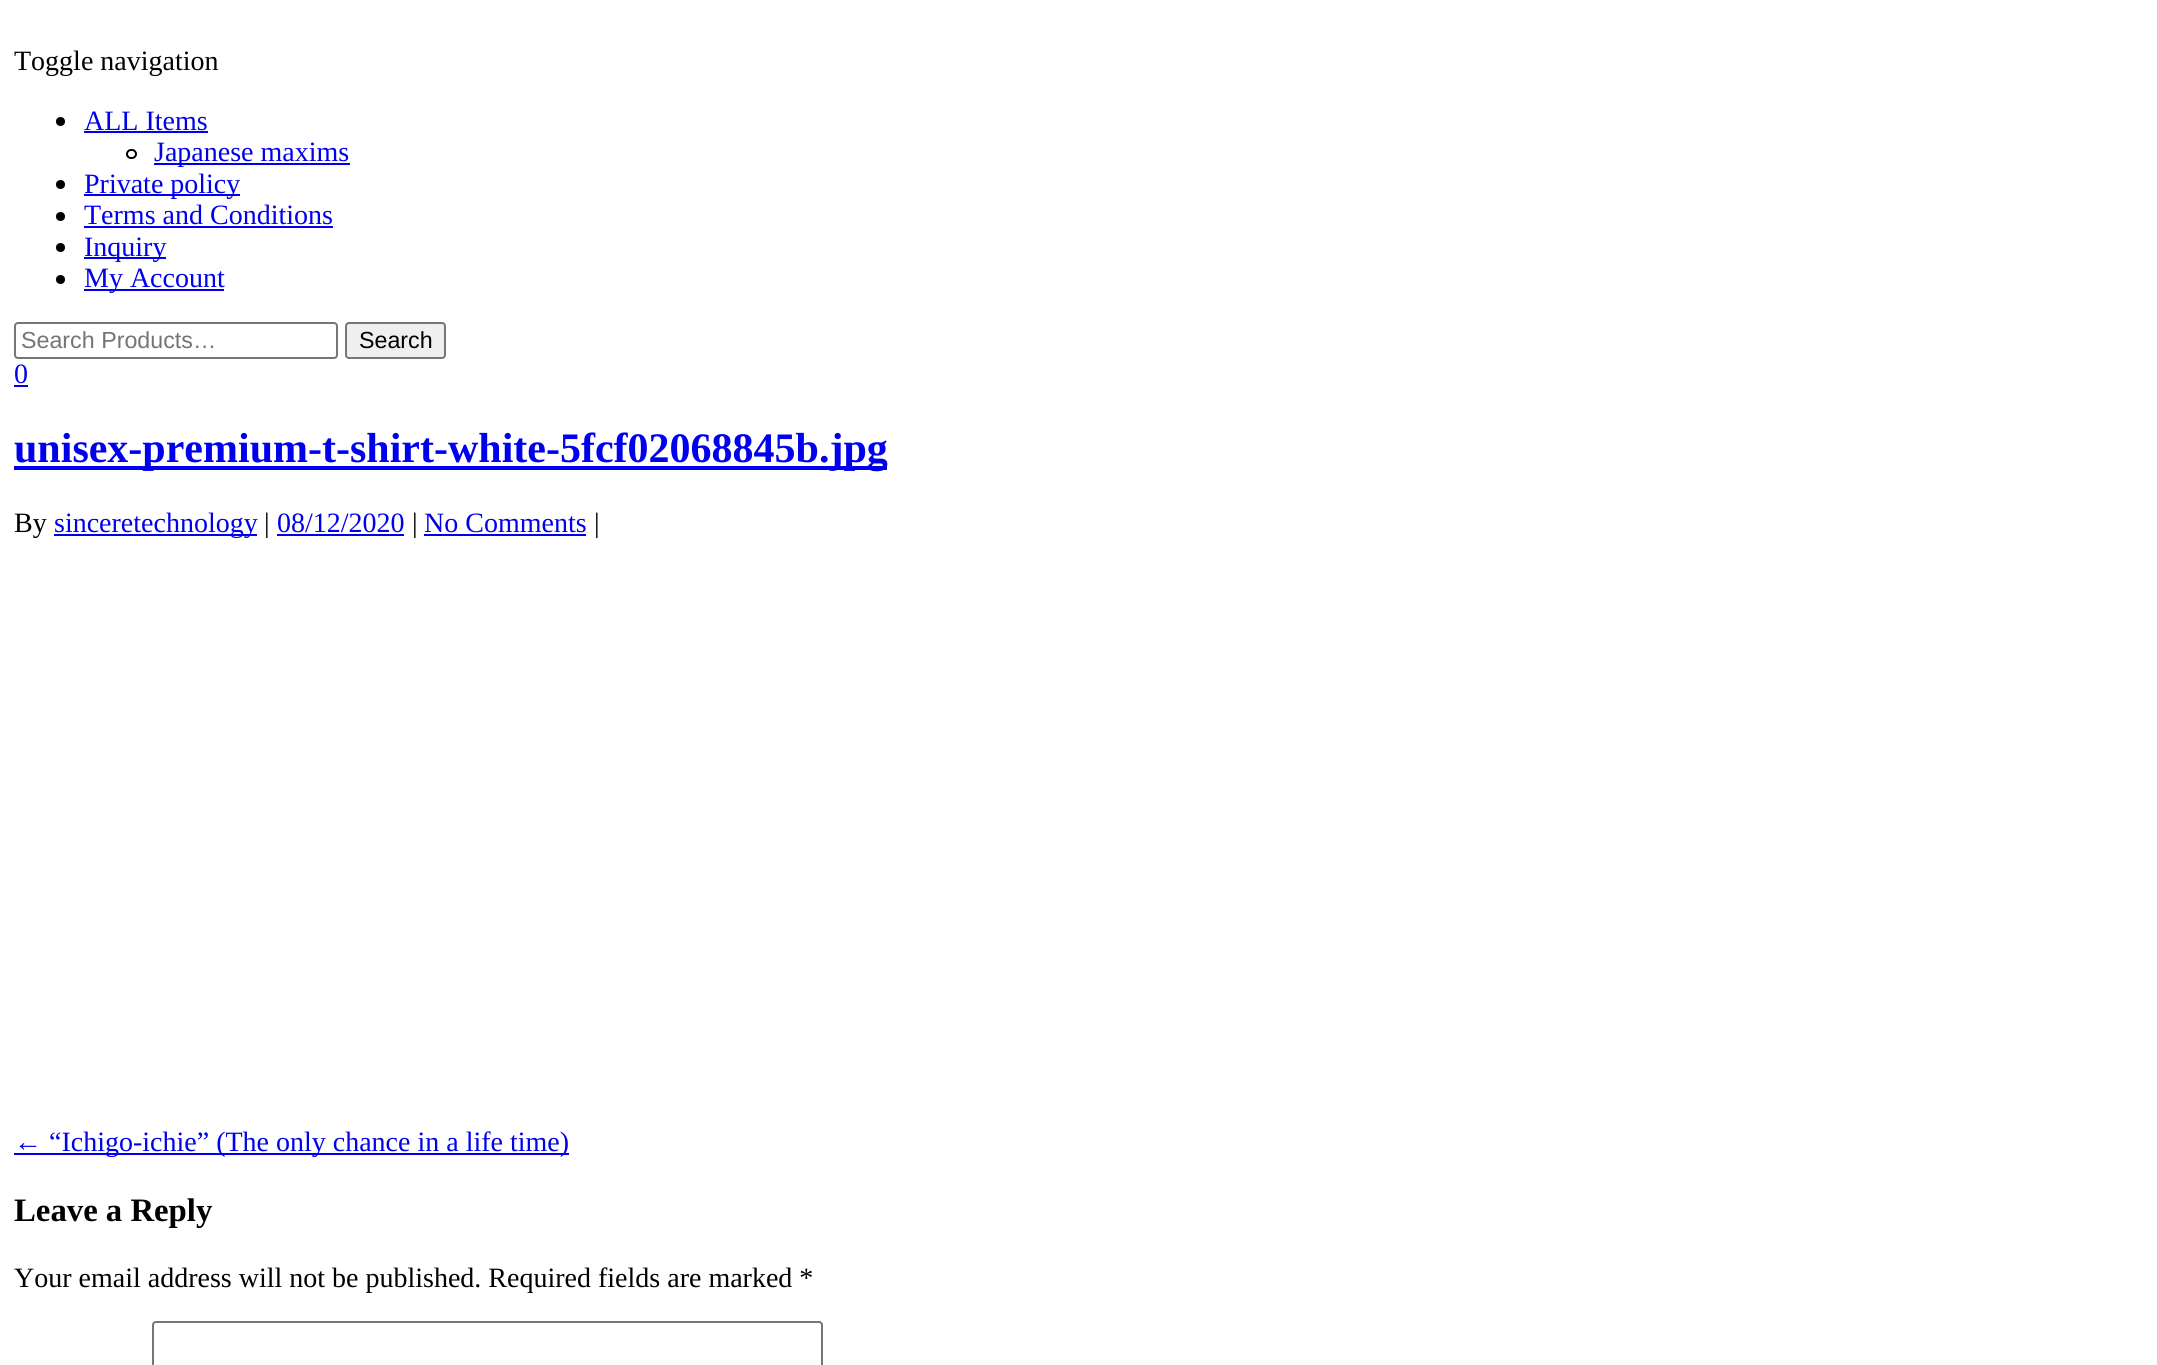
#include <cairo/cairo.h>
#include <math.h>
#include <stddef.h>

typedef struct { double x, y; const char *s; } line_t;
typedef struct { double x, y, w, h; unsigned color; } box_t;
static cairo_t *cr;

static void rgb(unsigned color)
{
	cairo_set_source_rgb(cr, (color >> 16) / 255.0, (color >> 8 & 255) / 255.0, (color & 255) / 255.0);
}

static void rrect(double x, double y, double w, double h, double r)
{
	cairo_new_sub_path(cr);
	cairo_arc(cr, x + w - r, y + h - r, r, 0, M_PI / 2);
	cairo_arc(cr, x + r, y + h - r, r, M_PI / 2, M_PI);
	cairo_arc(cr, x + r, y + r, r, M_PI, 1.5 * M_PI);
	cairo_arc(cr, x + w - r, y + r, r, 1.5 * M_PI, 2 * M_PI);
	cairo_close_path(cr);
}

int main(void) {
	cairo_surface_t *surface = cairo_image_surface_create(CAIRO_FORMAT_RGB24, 2157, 1365);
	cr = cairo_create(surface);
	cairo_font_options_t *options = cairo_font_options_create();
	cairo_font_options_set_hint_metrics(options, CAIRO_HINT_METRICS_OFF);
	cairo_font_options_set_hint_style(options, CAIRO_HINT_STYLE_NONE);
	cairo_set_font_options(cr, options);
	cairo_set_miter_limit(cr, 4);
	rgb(0xffffff);
	cairo_paint(cr);
	rgb(0x000000);
	cairo_arc(cr, 60.5, 121.5, 4.5, 0, 2 * M_PI);
	cairo_fill(cr);
	rgb(0x0000ee);
	cairo_rectangle(cr, 84, 131, 124, 2);
	cairo_fill(cr);
	rrect(127, 150, 9, 8, 4);
	rgb(0x000000);
	cairo_stroke(cr);
	rgb(0x0000ee);
	cairo_rectangle(cr, 154, 163, 196, 2);
	cairo_fill(cr);
	rgb(0x000000);
	cairo_arc(cr, 60.5, 184.5, 4.5, 0, 2 * M_PI);
	cairo_fill(cr);
	rgb(0x0000ee);
	cairo_rectangle(cr, 84, 194, 156, 2);
	cairo_fill(cr);
	rgb(0x000000);
	cairo_arc(cr, 60.5, 216.5, 4.5, 0, 2 * M_PI);
	cairo_fill(cr);
	rgb(0x0000ee);
	cairo_rectangle(cr, 84, 226, 249, 2);
	cairo_fill(cr);
	rgb(0x000000);
	cairo_arc(cr, 60.5, 247.5, 4.5, 0, 2 * M_PI);
	cairo_fill(cr);
	rgb(0x0000ee);
	cairo_rectangle(cr, 84, 257, 82, 2);
	cairo_fill(cr);
	rgb(0x000000);
	cairo_arc(cr, 60.5, 279.5, 4.5, 0, 2 * M_PI);
	cairo_fill(cr);
	rgb(0x0000ee);
	cairo_rectangle(cr, 84, 289, 140, 2);
	cairo_fill(cr);
	rrect(15, 323, 322, 35, 3);
	rgb(0x767676);
	cairo_stroke(cr);
	rgb(0xefefef);
	rrect(346, 323, 99, 35, 3);
	cairo_fill_preserve(cr);
	rgb(0x767676);
	cairo_stroke(cr);
	{
		static const box_t items[] = {
			{14, 385, 14, 2, 0x0000ee},
			{14, 466, 873, 4, 0x0000ee},
			{54, 534, 203, 2, 0x0000ee},
			{277, 534, 127, 2, 0x0000ee},
			{424, 534, 162, 2, 0x0000ee},
			{14, 1153, 555, 2, 0x0000ee},
		};
		for (size_t i = 0; i < sizeof items / sizeof *items; i++) {
			rgb(items[i].color);
			cairo_rectangle(cr, items[i].x, items[i].y, items[i].w, items[i].h);
			cairo_fill(cr);
		}
	}
	rrect(153, 1322, 669, 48, 3);
	rgb(0x767676);
	cairo_stroke(cr);
	cairo_select_font_face(cr, "Liberation Serif", CAIRO_FONT_SLANT_NORMAL, CAIRO_FONT_WEIGHT_NORMAL);
	cairo_set_font_size(cr, 28);
	rgb(0x000000);
	cairo_move_to(cr, 14, 70);
	cairo_show_text(cr, "Toggle navigation");
	rgb(0x0000ee);
	{
		static const line_t items[] = {
			{84, 130, "ALL Items"},
			{154, 161, "Japanese maxims"},
			{84, 193, "Private policy"},
			{84, 224, "Terms and Conditions"},
			{84, 256, "Inquiry"},
			{84, 287, "My Account"},
		};
		for (size_t i = 0; i < sizeof items / sizeof *items; i++) {
			cairo_move_to(cr, items[i].x, items[i].y);
			cairo_show_text(cr, items[i].s);
		}
	}
	cairo_select_font_face(cr, "Liberation Sans", CAIRO_FONT_SLANT_NORMAL, CAIRO_FONT_WEIGHT_NORMAL);
	cairo_set_font_size(cr, 23.25);
	rgb(0x757575);
	cairo_move_to(cr, 21, 348);
	cairo_show_text(cr, "Search Products…");
	rgb(0x000000);
	cairo_move_to(cr, 359, 348);
	cairo_show_text(cr, "Search");
	cairo_select_font_face(cr, "Liberation Serif", CAIRO_FONT_SLANT_NORMAL, CAIRO_FONT_WEIGHT_NORMAL);
	cairo_set_font_size(cr, 28);
	rgb(0x0000ee);
	cairo_move_to(cr, 14, 383);
	cairo_show_text(cr, "0");
	cairo_select_font_face(cr, "Liberation Serif", CAIRO_FONT_SLANT_NORMAL, CAIRO_FONT_WEIGHT_BOLD);
	cairo_set_font_size(cr, 42);
	cairo_move_to(cr, 14, 462);
	cairo_show_text(cr, "unisex-premium-t-shirt-white-5fcf02068845b.jpg");
	cairo_select_font_face(cr, "Liberation Serif", CAIRO_FONT_SLANT_NORMAL, CAIRO_FONT_WEIGHT_NORMAL);
	cairo_set_font_size(cr, 28);
	rgb(0x000000);
	cairo_move_to(cr, 14, 532);
	cairo_show_text(cr, "By");
	rgb(0x0000ee);
	cairo_move_to(cr, 54, 532);
	cairo_show_text(cr, "sinceretechnology");
	rgb(0x000000);
	cairo_move_to(cr, 264, 532);
	cairo_show_text(cr, "|");
	rgb(0x0000ee);
	cairo_move_to(cr, 277, 532);
	cairo_show_text(cr, "08/12/2020");
	rgb(0x000000);
	cairo_move_to(cr, 412, 532);
	cairo_show_text(cr, "|");
	rgb(0x0000ee);
	cairo_move_to(cr, 424, 532);
	cairo_show_text(cr, "No Comments");
	rgb(0x000000);
	cairo_move_to(cr, 594, 532);
	cairo_show_text(cr, "|");
	rgb(0x0000ee);
	cairo_move_to(cr, 14, 1151);
	cairo_show_text(cr, "← “Ichigo-ichie” (The only chance in a life time)");
	cairo_select_font_face(cr, "Liberation Serif", CAIRO_FONT_SLANT_NORMAL, CAIRO_FONT_WEIGHT_BOLD);
	cairo_set_font_size(cr, 32.75);
	rgb(0x000000);
	cairo_move_to(cr, 14, 1221);
	cairo_show_text(cr, "Leave a Reply");
	cairo_select_font_face(cr, "Liberation Serif", CAIRO_FONT_SLANT_NORMAL, CAIRO_FONT_WEIGHT_NORMAL);
	cairo_set_font_size(cr, 28);
	cairo_move_to(cr, 14, 1287);
	cairo_show_text(cr, "Your email address will not be published. Required fields are marked *");
	cairo_surface_write_to_png(surface, "page.png");
	cairo_font_options_destroy(options);
	cairo_destroy(cr);
	cairo_surface_destroy(surface);
	return 0;
}
